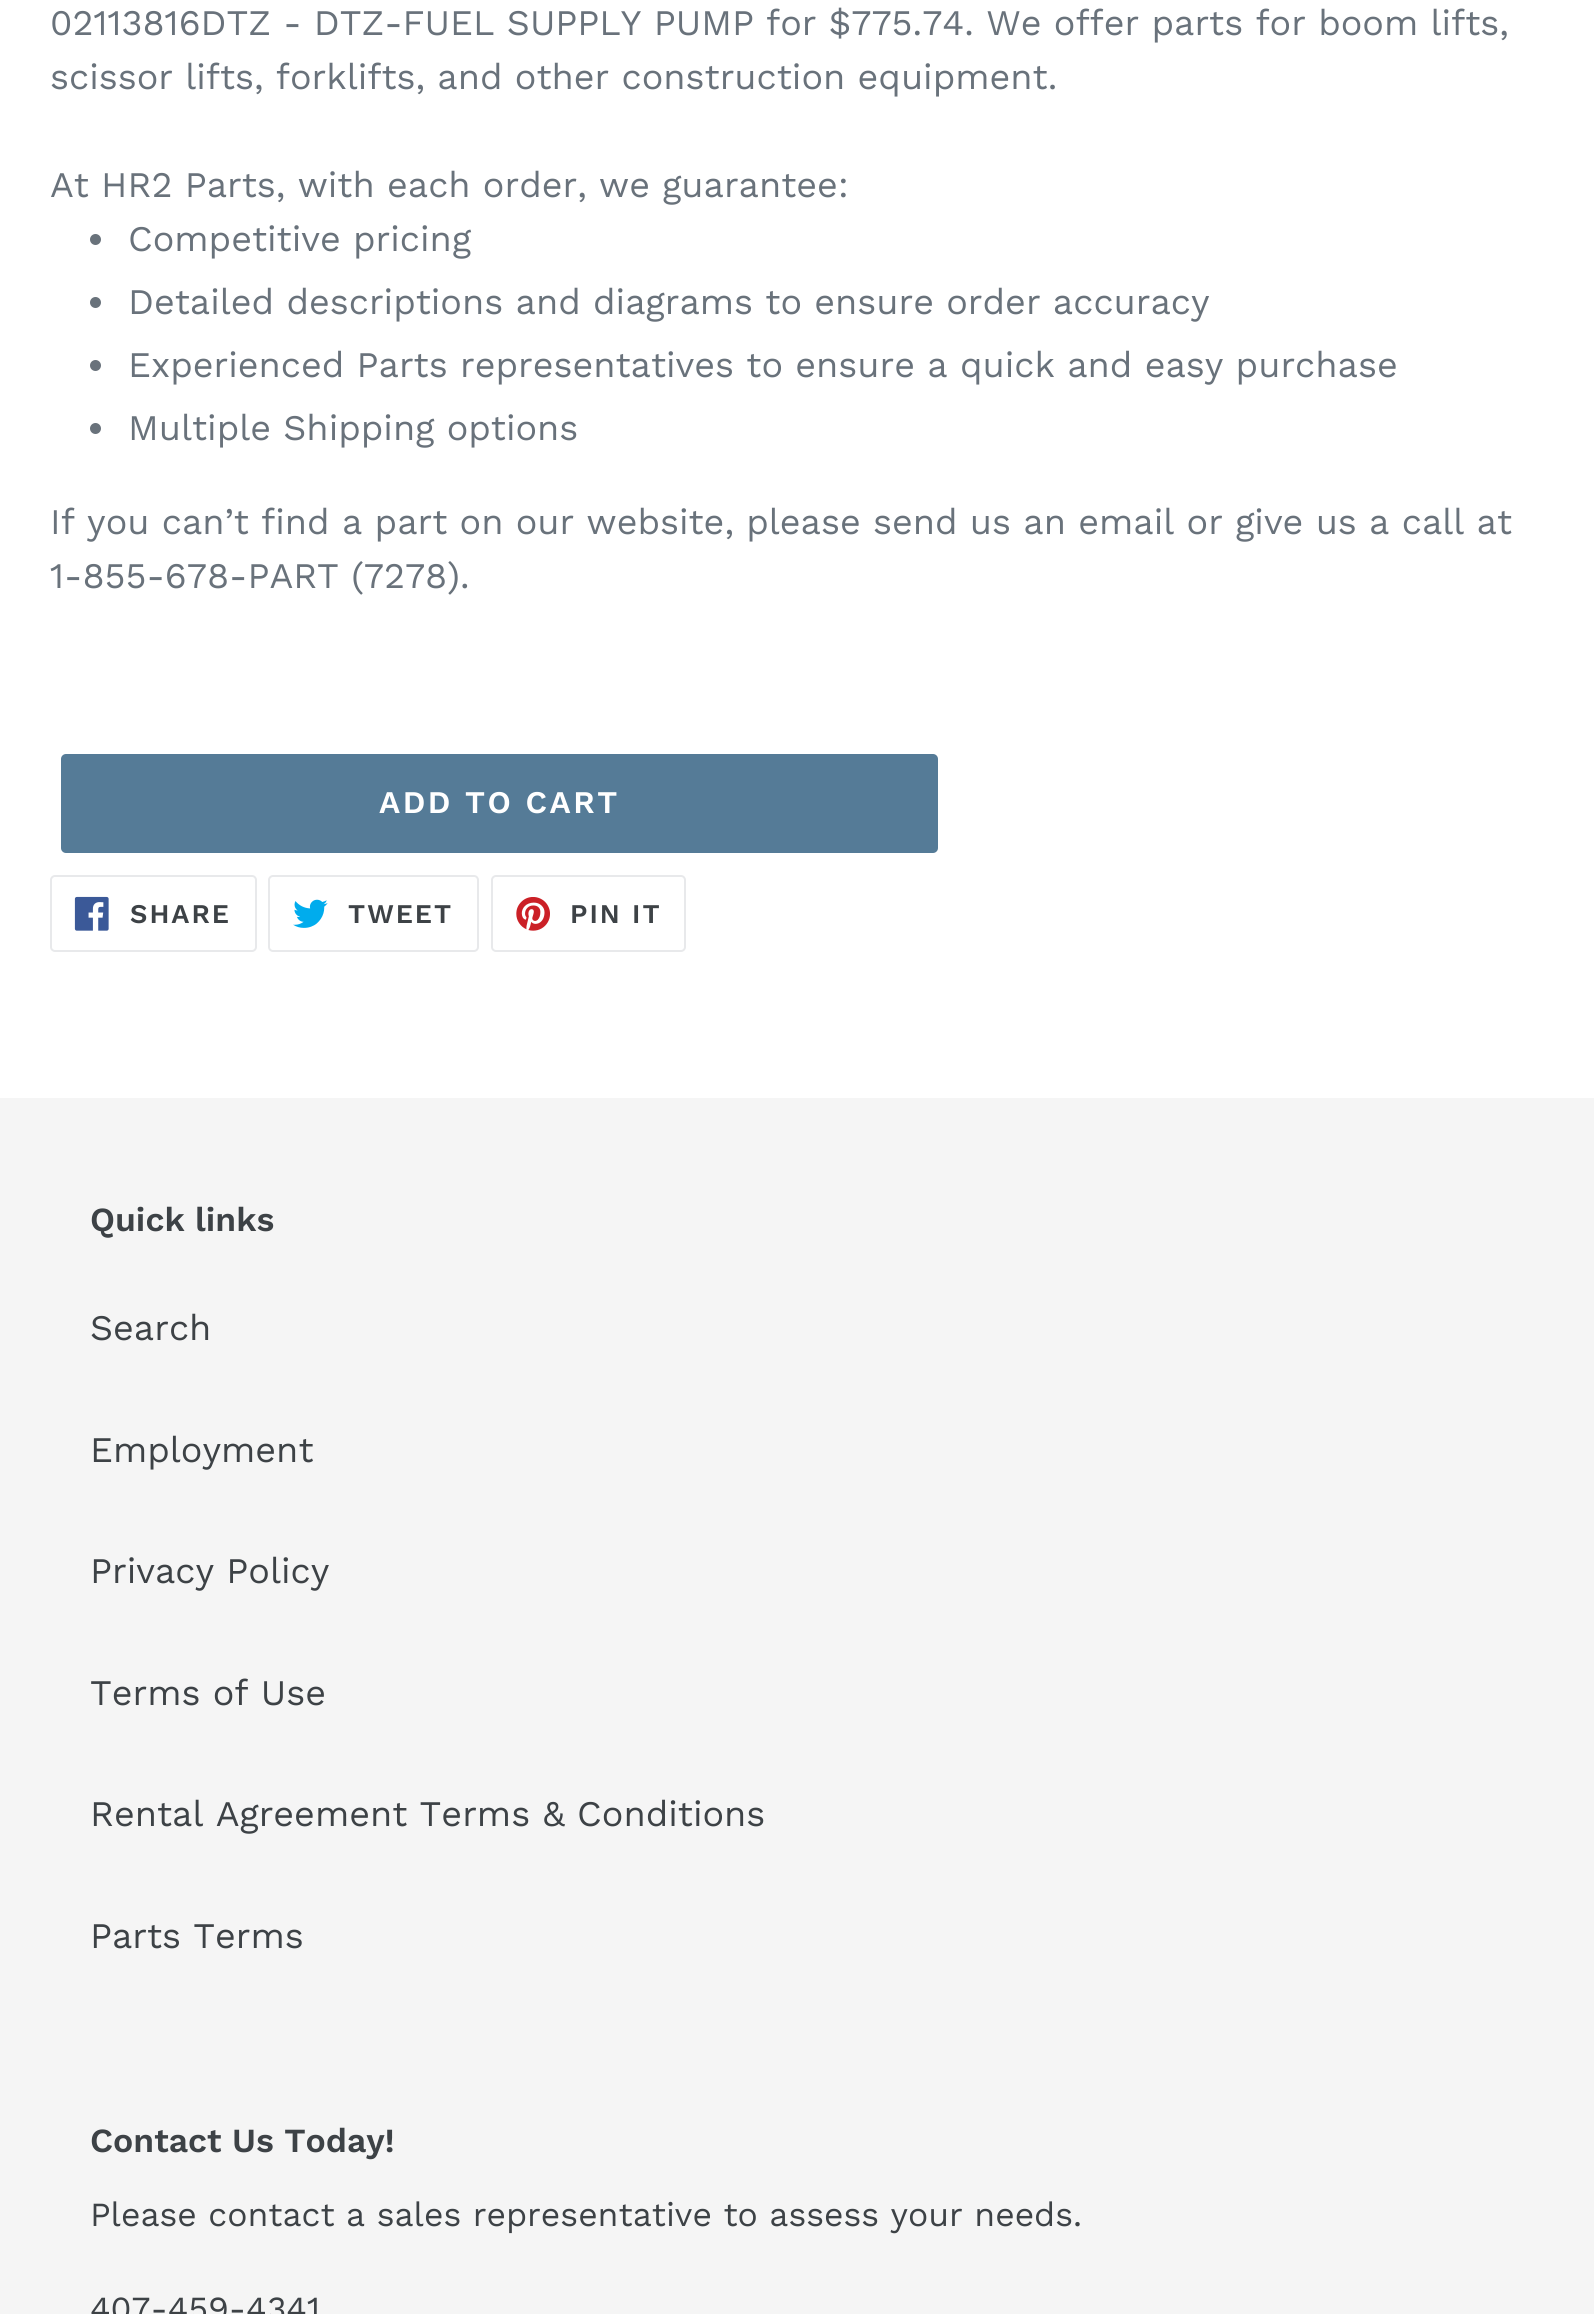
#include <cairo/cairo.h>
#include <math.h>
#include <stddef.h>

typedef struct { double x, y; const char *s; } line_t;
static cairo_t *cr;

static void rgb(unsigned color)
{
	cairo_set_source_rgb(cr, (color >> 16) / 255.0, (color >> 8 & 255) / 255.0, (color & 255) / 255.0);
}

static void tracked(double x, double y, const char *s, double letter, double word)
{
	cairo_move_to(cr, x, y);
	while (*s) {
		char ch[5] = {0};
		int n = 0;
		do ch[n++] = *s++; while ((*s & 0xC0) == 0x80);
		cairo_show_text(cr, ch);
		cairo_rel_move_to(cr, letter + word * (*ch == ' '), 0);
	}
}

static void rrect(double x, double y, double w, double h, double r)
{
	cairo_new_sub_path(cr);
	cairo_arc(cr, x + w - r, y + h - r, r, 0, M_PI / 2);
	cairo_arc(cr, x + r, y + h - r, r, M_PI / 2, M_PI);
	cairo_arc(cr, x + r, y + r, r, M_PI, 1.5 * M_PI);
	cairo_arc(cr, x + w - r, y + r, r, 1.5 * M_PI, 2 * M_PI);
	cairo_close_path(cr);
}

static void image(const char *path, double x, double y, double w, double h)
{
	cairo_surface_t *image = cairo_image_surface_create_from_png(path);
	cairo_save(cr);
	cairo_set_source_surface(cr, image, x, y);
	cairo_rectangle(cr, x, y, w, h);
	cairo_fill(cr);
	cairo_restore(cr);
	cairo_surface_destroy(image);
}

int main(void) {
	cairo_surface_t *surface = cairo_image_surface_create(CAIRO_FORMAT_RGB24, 1594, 2314);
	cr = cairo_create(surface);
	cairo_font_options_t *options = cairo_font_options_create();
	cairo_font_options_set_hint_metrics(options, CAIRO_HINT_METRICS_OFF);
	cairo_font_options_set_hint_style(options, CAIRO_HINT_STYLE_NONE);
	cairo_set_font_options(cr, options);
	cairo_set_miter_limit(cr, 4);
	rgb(0xffffff);
	cairo_paint(cr);
	rgb(0x69727b);
	cairo_arc(cr, 95.5, 239.5, 5.5, 0, 2 * M_PI);
	cairo_fill(cr);
	cairo_arc(cr, 95.5, 302.5, 5.5, 0, 2 * M_PI);
	cairo_fill(cr);
	cairo_arc(cr, 95.5, 365.5, 5.5, 0, 2 * M_PI);
	cairo_fill(cr);
	cairo_arc(cr, 95.5, 428.5, 5.5, 0, 2 * M_PI);
	cairo_fill(cr);
	rgb(0x557b97);
	rrect(61, 754, 877, 99, 5);
	cairo_fill(cr);
	rrect(51, 876, 205, 75, 4);
	rgb(0xe8e9eb);
	cairo_stroke(cr);
	image("img/1.png", 74, 896, 35, 35);
	rrect(269, 876, 209, 75, 4);
	cairo_stroke(cr);
	image("img/2.png", 293, 899, 35, 29);
	rrect(492, 876, 193, 75, 4);
	cairo_stroke(cr);
	image("img/3.png", 516, 897, 34, 34);
	rgb(0xf5f5f5);
	cairo_rectangle(cr, 0, 1098, 1594, 1216);
	cairo_fill(cr);
	cairo_select_font_face(cr, "Work Sans", CAIRO_FONT_SLANT_NORMAL, CAIRO_FONT_WEIGHT_NORMAL);
	cairo_set_font_size(cr, 36);
	rgb(0x69727b);
	{
		static const line_t items[] = {
			{50, 35, "02113816DTZ - DTZ-FUEL SUPPLY PUMP for $775.74. We offer parts for boom lifts,"},
			{50, 89, "scissor lifts, forklifts, and other construction equipment."},
			{50, 197, "At HR2 Parts, with each order, we guarantee:"},
			{128, 251, "Competitive pricing"},
			{128, 314, "Detailed descriptions and diagrams to ensure order accuracy"},
			{128, 377, "Experienced Parts representatives to ensure a quick and easy purchase"},
			{128, 440, "Multiple Shipping options"},
			{50, 534, "If you can’t find a part on our website, please send us an email or give us a call at"},
			{50, 588, "1-855-678-PART (7278)."},
		};
		for (size_t i = 0; i < sizeof items / sizeof *items; i++) {
			cairo_move_to(cr, items[i].x, items[i].y);
			cairo_show_text(cr, items[i].s);
		}
	}
	cairo_select_font_face(cr, "Work Sans SemiBold", CAIRO_FONT_SLANT_NORMAL, CAIRO_FONT_WEIGHT_NORMAL);
	cairo_set_font_size(cr, 31.5);
	rgb(0xffffff);
	tracked(379, 813, "ADD TO CART", 2.5, 0);
	cairo_set_font_size(cr, 27);
	rgb(0x3d4246);
	{
		static const line_t items[] = {
			{130, 923, "SHARE"},
			{348, 923, "TWEET"},
			{570, 923, "PIN IT"},
		};
		for (size_t i = 0; i < sizeof items / sizeof *items; i++) {
			tracked(items[i].x, items[i].y, items[i].s, 2, 0);
		}
	}
	cairo_set_font_size(cr, 33.75);
	cairo_move_to(cr, 90, 1231);
	cairo_show_text(cr, "Quick links");
	cairo_select_font_face(cr, "Work Sans", CAIRO_FONT_SLANT_NORMAL, CAIRO_FONT_WEIGHT_NORMAL);
	cairo_set_font_size(cr, 36);
	{
		static const line_t items[] = {
			{90, 1340, "Search"},
			{90, 1462, "Employment"},
			{90, 1583, "Privacy Policy"},
			{90, 1705, "Terms of Use"},
			{90, 1826, "Rental Agreement Terms & Conditions"},
			{90, 1948, "Parts Terms"},
		};
		for (size_t i = 0; i < sizeof items / sizeof *items; i++) {
			cairo_move_to(cr, items[i].x, items[i].y);
			cairo_show_text(cr, items[i].s);
		}
	}
	cairo_select_font_face(cr, "Work Sans SemiBold", CAIRO_FONT_SLANT_NORMAL, CAIRO_FONT_WEIGHT_NORMAL);
	cairo_set_font_size(cr, 33.75);
	cairo_move_to(cr, 90, 2152);
	cairo_show_text(cr, "Contact Us Today!");
	cairo_select_font_face(cr, "Work Sans", CAIRO_FONT_SLANT_NORMAL, CAIRO_FONT_WEIGHT_NORMAL);
	cairo_move_to(cr, 90, 2226);
	cairo_show_text(cr, "Please contact a sales representative to assess your needs.");
	cairo_move_to(cr, 90, 2320);
	cairo_show_text(cr, "407-459-4341");
	cairo_surface_write_to_png(surface, "page.png");
	cairo_font_options_destroy(options);
	cairo_destroy(cr);
	cairo_surface_destroy(surface);
	return 0;
}
